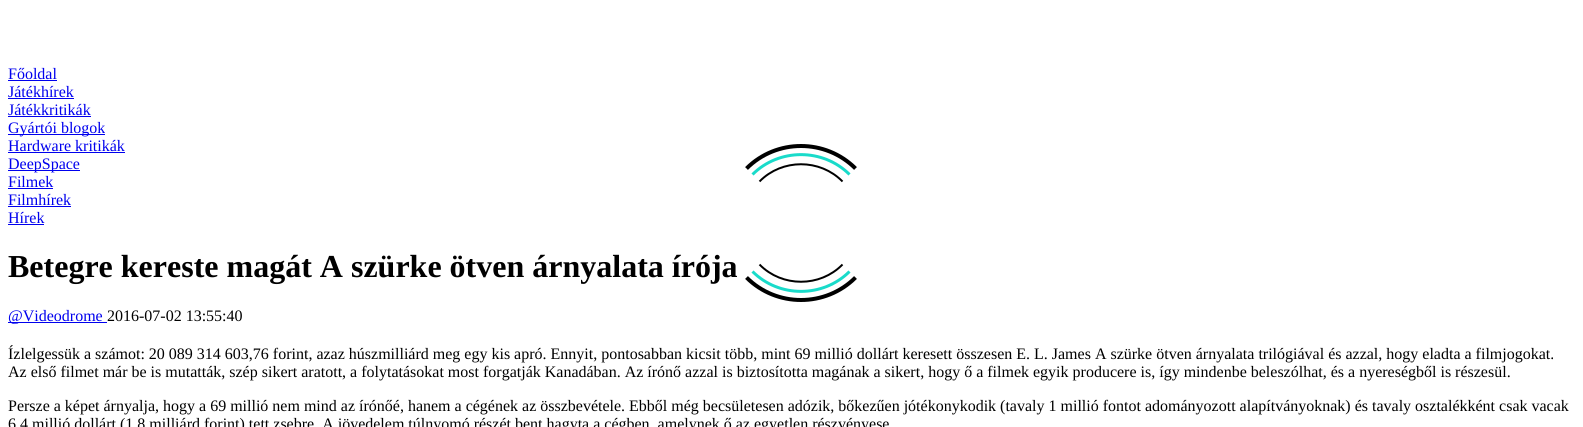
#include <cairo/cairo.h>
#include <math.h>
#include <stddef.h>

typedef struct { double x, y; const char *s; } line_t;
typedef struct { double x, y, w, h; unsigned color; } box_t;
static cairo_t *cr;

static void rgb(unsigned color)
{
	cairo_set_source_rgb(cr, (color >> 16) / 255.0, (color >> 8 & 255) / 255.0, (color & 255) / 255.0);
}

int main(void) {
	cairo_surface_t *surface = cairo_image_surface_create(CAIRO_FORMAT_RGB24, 1583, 427);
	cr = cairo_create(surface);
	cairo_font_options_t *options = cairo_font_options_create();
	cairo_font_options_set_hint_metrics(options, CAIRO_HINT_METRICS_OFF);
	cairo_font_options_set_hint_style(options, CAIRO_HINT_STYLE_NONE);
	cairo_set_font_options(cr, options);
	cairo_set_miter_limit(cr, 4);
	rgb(0xffffff);
	cairo_paint(cr);
	{
		static const box_t items[] = {
			{8, 80, 49, 1, 0x0000ee},
			{8, 98, 66, 1, 0x0000ee},
			{8, 116, 83, 1, 0x0000ee},
			{8, 134, 97, 1, 0x0000ee},
			{8, 152, 117, 1, 0x0000ee},
			{8, 170, 72, 1, 0x0000ee},
		};
		for (size_t i = 0; i < sizeof items / sizeof *items; i++) {
			rgb(items[i].color);
			cairo_rectangle(cr, items[i].x, items[i].y, items[i].w, items[i].h);
			cairo_fill(cr);
		}
	}
	cairo_new_path(cr);
	cairo_move_to(cr, 746.5, 168.5);
	cairo_curve_to(cr, 776.5, 138.5, 825.5, 138.5, 855.5, 168.5);
	rgb(0x000000);
	cairo_set_line_width(cr, 4);
	cairo_stroke(cr);
	cairo_new_path(cr);
	cairo_move_to(cr, 855.5, 277.5);
	cairo_curve_to(cr, 825.5, 307.5, 776.5, 307.5, 746.5, 277.5);
	cairo_stroke(cr);
	cairo_new_path(cr);
	cairo_move_to(cr, 752.5, 174.5);
	cairo_curve_to(cr, 779, 148, 823, 148, 849.5, 174.5);
	rgb(0x19dbca);
	cairo_set_line_width(cr, 3);
	cairo_stroke(cr);
	cairo_new_path(cr);
	cairo_move_to(cr, 849.5, 271.5);
	cairo_curve_to(cr, 823, 298, 779, 298, 752.5, 271.5);
	cairo_stroke(cr);
	cairo_new_path(cr);
	cairo_move_to(cr, 759.5, 181.5);
	cairo_curve_to(cr, 782, 158.5, 820, 158.5, 842.5, 181.5);
	rgb(0x000000);
	cairo_set_line_width(cr, 2);
	cairo_stroke(cr);
	cairo_new_path(cr);
	cairo_move_to(cr, 842.5, 264.5);
	cairo_curve_to(cr, 820, 287.5, 782, 287.5, 759.5, 264.5);
	cairo_stroke(cr);
	{
		static const box_t items[] = {
			{8, 188, 45, 1, 0x0000ee},
			{8, 206, 63, 1, 0x0000ee},
			{8, 224, 36, 1, 0x0000ee},
			{8, 322, 99, 1, 0x0000ee},
		};
		for (size_t i = 0; i < sizeof items / sizeof *items; i++) {
			rgb(items[i].color);
			cairo_rectangle(cr, items[i].x, items[i].y, items[i].w, items[i].h);
			cairo_fill(cr);
		}
	}
	cairo_select_font_face(cr, "Liberation Serif", CAIRO_FONT_SLANT_NORMAL, CAIRO_FONT_WEIGHT_NORMAL);
	cairo_set_font_size(cr, 16);
	{
		static const line_t items[] = {
			{8, 79, "Főoldal"},
			{8, 97, "Játékhírek"},
			{8, 115, "Játékkritikák"},
			{8, 133, "Gyártói blogok"},
			{8, 151, "Hardware kritikák"},
			{8, 169, "DeepSpace"},
			{8, 187, "Filmek"},
			{8, 205, "Filmhírek"},
			{8, 223, "Hírek"},
		};
		for (size_t i = 0; i < sizeof items / sizeof *items; i++) {
			cairo_move_to(cr, items[i].x, items[i].y);
			cairo_show_text(cr, items[i].s);
		}
	}
	cairo_select_font_face(cr, "Liberation Serif", CAIRO_FONT_SLANT_NORMAL, CAIRO_FONT_WEIGHT_BOLD);
	cairo_set_font_size(cr, 32);
	rgb(0x000000);
	cairo_move_to(cr, 8, 277);
	cairo_show_text(cr, "Betegre kereste magát A szürke ötven árnyalata írója");
	cairo_select_font_face(cr, "Liberation Serif", CAIRO_FONT_SLANT_NORMAL, CAIRO_FONT_WEIGHT_NORMAL);
	cairo_set_font_size(cr, 16);
	rgb(0x0000ee);
	cairo_move_to(cr, 8, 321);
	cairo_show_text(cr, "@Videodrome");
	rgb(0x000000);
	{
		static const line_t items[] = {
			{107, 321, "2016-07-02 13:55:40"},
			{8, 359, "Ízlelgessük a számot: 20 089 314 603,76 forint, azaz húszmilliárd meg egy kis apró. Ennyit, pontosabban kicsit több, mint 69 millió dollárt keresett összesen E. L. James A szürke ötven árnyalata trilógiával és azzal, hogy eladta a filmjogokat."},
			{8, 377, "Az első filmet már be is mutatták, szép sikert aratott, a folytatásokat most forgatják Kanadában. Az írónő azzal is biztosította magának a sikert, hogy ő a filmek egyik producere is, így mindenbe beleszólhat, és a nyereségből is részesül."},
			{8, 411, "Persze a képet árnyalja, hogy a 69 millió nem mind az írónőé, hanem a cégének az összbevétele. Ebből még becsületesen adózik, bőkezűen jótékonykodik (tavaly 1 millió fontot adományozott alapítványoknak) és tavaly osztalékként csak vacak"},
			{8, 429, "6,4 millió dollárt (1,8 milliárd forint) tett zsebre. A jövedelem túlnyomó részét bent hagyta a cégben, amelynek ő az egyetlen részvényese"},
		};
		for (size_t i = 0; i < sizeof items / sizeof *items; i++) {
			cairo_move_to(cr, items[i].x, items[i].y);
			cairo_show_text(cr, items[i].s);
		}
	}
	cairo_surface_write_to_png(surface, "page.png");
	cairo_font_options_destroy(options);
	cairo_destroy(cr);
	cairo_surface_destroy(surface);
	return 0;
}
